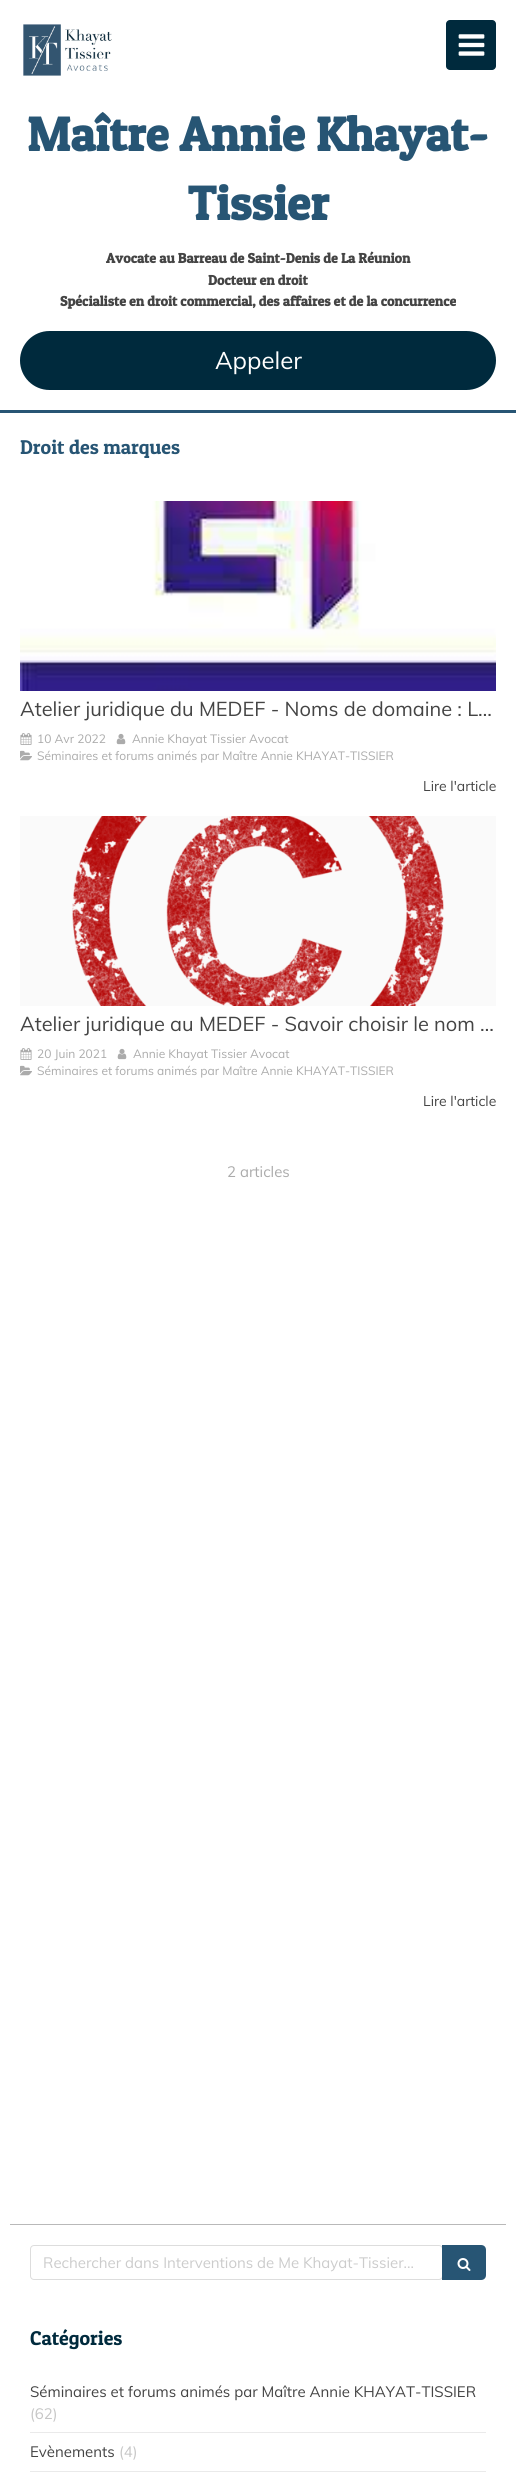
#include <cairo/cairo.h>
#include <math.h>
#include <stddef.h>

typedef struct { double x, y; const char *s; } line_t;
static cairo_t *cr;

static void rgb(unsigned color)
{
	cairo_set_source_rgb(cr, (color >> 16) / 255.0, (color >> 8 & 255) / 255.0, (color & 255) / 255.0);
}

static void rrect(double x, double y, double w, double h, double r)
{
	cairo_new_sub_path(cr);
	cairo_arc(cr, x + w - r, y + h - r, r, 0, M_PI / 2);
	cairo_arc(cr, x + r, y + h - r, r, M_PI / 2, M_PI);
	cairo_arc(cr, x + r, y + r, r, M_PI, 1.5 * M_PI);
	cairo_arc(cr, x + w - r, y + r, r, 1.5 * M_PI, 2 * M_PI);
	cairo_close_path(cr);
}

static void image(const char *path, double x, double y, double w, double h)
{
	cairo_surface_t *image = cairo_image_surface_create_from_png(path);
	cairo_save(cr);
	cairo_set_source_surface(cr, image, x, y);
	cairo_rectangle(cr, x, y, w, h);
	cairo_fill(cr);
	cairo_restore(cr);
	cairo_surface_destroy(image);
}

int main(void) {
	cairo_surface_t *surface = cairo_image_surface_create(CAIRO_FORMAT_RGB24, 516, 2473);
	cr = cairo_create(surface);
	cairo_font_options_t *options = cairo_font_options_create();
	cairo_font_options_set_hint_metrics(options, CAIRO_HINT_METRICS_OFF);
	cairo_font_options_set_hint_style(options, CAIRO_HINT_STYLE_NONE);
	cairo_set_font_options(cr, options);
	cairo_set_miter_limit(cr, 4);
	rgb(0xffffff);
	cairo_paint(cr);
	rgb(0x275574);
	cairo_rectangle(cr, 0, 410, 516, 3);
	cairo_fill(cr);
	image("img/1.png", 23, 24, 89, 52);
	rgb(0x002a3d);
	rrect(446, 20, 50, 50, 4);
	cairo_fill(cr);
	image("img/2.png", 458, 34, 27, 22);
	rrect(21, 332, 474, 57, 28.5);
	cairo_fill_preserve(cr);
	cairo_stroke(cr);
	rgb(0xb9b9b9);
	cairo_rectangle(cr, 10, 2224, 496, 1);
	cairo_fill(cr);
	image("img/3.png", 20, 501, 476, 190);
	image("img/4.png", 20, 733, 12, 12);
	image("img/5.png", 116, 733, 10, 12);
	image("img/6.png", 20, 750, 12, 11);
	rgb(0xfafafa);
	cairo_rectangle(cr, 20, 816, 476, 190);
	cairo_fill(cr);
	image("img/7.png", 72, 816, 372, 190);
	image("img/4.png", 20, 1048, 12, 12);
	image("img/5.png", 117, 1048, 10, 12);
	image("img/6.png", 20, 1065, 12, 11);
	rrect(30.5, 2245.5, 412, 34, 3.5);
	rgb(0xdddddd);
	cairo_set_line_width(cr, 1);
	cairo_stroke(cr);
	rgb(0x275574);
	cairo_new_path(cr);
	cairo_move_to(cr, 442, 2245);
	cairo_line_to(cr, 481, 2245);
	cairo_curve_to(cr, 484, 2245, 486, 2247, 486, 2250);
	cairo_line_to(cr, 486, 2275);
	cairo_curve_to(cr, 486, 2278, 484, 2280, 481, 2280);
	cairo_line_to(cr, 442, 2280);
	cairo_close_path(cr);
	cairo_fill(cr);
	image("img/8.png", 457, 2258, 14, 13);
	rgb(0xeaeaea);
	cairo_rectangle(cr, 30, 2432, 456, 1);
	cairo_fill(cr);
	cairo_rectangle(cr, 30, 2471, 456, 1);
	cairo_fill(cr);
	cairo_select_font_face(cr, "Patua One", CAIRO_FONT_SLANT_NORMAL, CAIRO_FONT_WEIGHT_BOLD);
	cairo_set_font_size(cr, 48);
	rgb(0x275574);
	cairo_move_to(cr, 27, 151);
	cairo_show_text(cr, "Maître Annie Khayat-");
	cairo_move_to(cr, 188, 220);
	cairo_show_text(cr, "Tissier");
	cairo_set_font_size(cr, 14);
	rgb(0x444444);
	{
		static const line_t items[] = {
			{106, 263, "Avocate au Barreau de Saint-Denis de La Réunion"},
			{208, 285, "Docteur en droit"},
			{60, 306, "Spécialiste en droit commercial, des affaires et de la concurrence"},
		};
		for (size_t i = 0; i < sizeof items / sizeof *items; i++) {
			cairo_move_to(cr, items[i].x, items[i].y);
			cairo_show_text(cr, items[i].s);
		}
	}
	cairo_select_font_face(cr, "Muli", CAIRO_FONT_SLANT_NORMAL, CAIRO_FONT_WEIGHT_NORMAL);
	cairo_set_font_size(cr, 24);
	rgb(0xffffff);
	cairo_move_to(cr, 215, 369);
	cairo_show_text(cr, "Appeler");
	cairo_select_font_face(cr, "Patua One", CAIRO_FONT_SLANT_NORMAL, CAIRO_FONT_WEIGHT_NORMAL);
	cairo_set_font_size(cr, 20);
	rgb(0x275574);
	cairo_move_to(cr, 20, 454);
	cairo_show_text(cr, "Droit des marques");
	cairo_select_font_face(cr, "Muli", CAIRO_FONT_SLANT_NORMAL, CAIRO_FONT_WEIGHT_NORMAL);
	rgb(0x444444);
	cairo_move_to(cr, 20, 716);
	cairo_show_text(cr, "Atelier juridique du MEDEF - Noms de domaine : L…");
	cairo_set_font_size(cr, 12);
	rgb(0xababab);
	{
		static const line_t items[] = {
			{37, 743, "10 Avr 2022"},
			{132, 743, "Annie Khayat Tissier Avocat"},
			{37, 760, "Séminaires et forums animés par Maître Annie KHAYAT-TISSIER"},
		};
		for (size_t i = 0; i < sizeof items / sizeof *items; i++) {
			cairo_move_to(cr, items[i].x, items[i].y);
			cairo_show_text(cr, items[i].s);
		}
	}
	cairo_set_font_size(cr, 14);
	rgb(0x444444);
	cairo_move_to(cr, 423, 791);
	cairo_show_text(cr, "Lire l'article");
	cairo_set_font_size(cr, 20);
	cairo_move_to(cr, 20, 1031);
	cairo_show_text(cr, "Atelier juridique au MEDEF - Savoir choisir le nom …");
	cairo_set_font_size(cr, 12);
	rgb(0xababab);
	{
		static const line_t items[] = {
			{37, 1058, "20 Juin 2021"},
			{133, 1058, "Annie Khayat Tissier Avocat"},
			{37, 1075, "Séminaires et forums animés par Maître Annie KHAYAT-TISSIER"},
		};
		for (size_t i = 0; i < sizeof items / sizeof *items; i++) {
			cairo_move_to(cr, items[i].x, items[i].y);
			cairo_show_text(cr, items[i].s);
		}
	}
	cairo_set_font_size(cr, 14);
	rgb(0x444444);
	cairo_move_to(cr, 423, 1106);
	cairo_show_text(cr, "Lire l'article");
	cairo_set_font_size(cr, 15);
	rgb(0xababab);
	cairo_move_to(cr, 227, 1177);
	cairo_show_text(cr, "2 articles");
	rgb(0xcccccc);
	cairo_move_to(cr, 43, 2268);
	cairo_show_text(cr, "Rechercher dans Interventions de Me Khayat-Tissier...");
	cairo_select_font_face(cr, "Patua One", CAIRO_FONT_SLANT_NORMAL, CAIRO_FONT_WEIGHT_NORMAL);
	cairo_set_font_size(cr, 20);
	rgb(0x002a3d);
	cairo_move_to(cr, 30, 2345);
	cairo_show_text(cr, "Catégories");
	cairo_select_font_face(cr, "Muli", CAIRO_FONT_SLANT_NORMAL, CAIRO_FONT_WEIGHT_NORMAL);
	cairo_set_font_size(cr, 15);
	rgb(0x444444);
	cairo_move_to(cr, 30, 2397);
	cairo_show_text(cr, "Séminaires et forums animés par Maître Annie KHAYAT-TISSIER");
	rgb(0xc6c6c6);
	cairo_move_to(cr, 30, 2419);
	cairo_show_text(cr, "(62)");
	rgb(0x444444);
	cairo_move_to(cr, 30, 2457);
	cairo_show_text(cr, "Evènements");
	rgb(0xc6c6c6);
	cairo_move_to(cr, 119, 2457);
	cairo_show_text(cr, "(4)");
	cairo_surface_write_to_png(surface, "page.png");
	cairo_font_options_destroy(options);
	cairo_destroy(cr);
	cairo_surface_destroy(surface);
	return 0;
}
